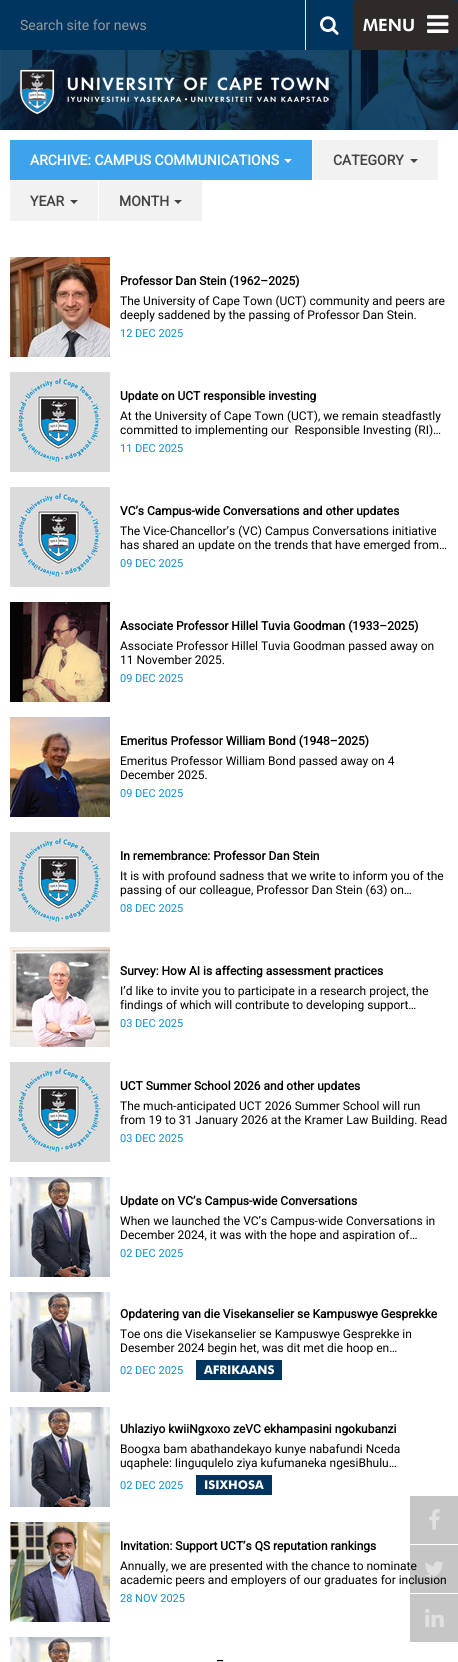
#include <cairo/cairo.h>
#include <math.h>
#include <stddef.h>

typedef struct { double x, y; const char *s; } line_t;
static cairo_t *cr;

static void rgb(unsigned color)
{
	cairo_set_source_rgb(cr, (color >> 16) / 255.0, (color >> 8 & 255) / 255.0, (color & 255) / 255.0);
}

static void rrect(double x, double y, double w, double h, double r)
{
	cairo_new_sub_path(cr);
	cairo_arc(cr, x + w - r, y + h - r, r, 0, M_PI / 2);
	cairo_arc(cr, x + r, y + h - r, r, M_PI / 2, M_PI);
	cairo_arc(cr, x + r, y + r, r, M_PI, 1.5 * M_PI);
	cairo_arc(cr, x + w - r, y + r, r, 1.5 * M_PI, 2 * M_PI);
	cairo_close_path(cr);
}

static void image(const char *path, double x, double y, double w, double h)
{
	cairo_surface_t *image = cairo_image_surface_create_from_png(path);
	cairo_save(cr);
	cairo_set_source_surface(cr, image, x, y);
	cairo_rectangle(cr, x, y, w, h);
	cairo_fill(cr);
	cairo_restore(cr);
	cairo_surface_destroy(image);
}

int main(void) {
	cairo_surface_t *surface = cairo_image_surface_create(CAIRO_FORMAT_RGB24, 458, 1662);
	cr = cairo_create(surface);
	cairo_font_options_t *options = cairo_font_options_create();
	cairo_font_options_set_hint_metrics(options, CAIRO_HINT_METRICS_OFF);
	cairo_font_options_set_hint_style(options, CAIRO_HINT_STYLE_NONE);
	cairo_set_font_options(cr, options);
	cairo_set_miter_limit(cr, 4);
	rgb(0xffffff);
	cairo_paint(cr);
	rgb(0x003560);
	cairo_rectangle(cr, 0, 0, 458, 50);
	cairo_fill(cr);
	rgb(0xe7e5e5);
	cairo_rectangle(cr, 305, 0, 1, 50);
	cairo_fill(cr);
	image("img/1.png", 320, 16, 19, 19);
	rgb(0x2e2a2a);
	rrect(353, 0, 105, 50, 4);
	cairo_fill(cr);
	image("img/2.png", 427, 15, 22, 18);
	image("img/3.png", 0, 50, 458, 80);
	image("img/4.png", 19, 69, 310, 46);
	rgb(0x3ca4ed);
	cairo_rectangle(cr, 10, 140, 302, 40);
	cairo_fill(cr);
	rgb(0xffffff);
	cairo_new_path(cr);
	cairo_move_to(cr, 284, 159);
	cairo_line_to(cr, 292, 159);
	cairo_line_to(cr, 288, 163);
	cairo_close_path(cr);
	cairo_fill(cr);
	rgb(0xf2f2f2);
	cairo_rectangle(cr, 313, 140, 125, 40);
	cairo_fill(cr);
	rgb(0x444444);
	cairo_new_path(cr);
	cairo_move_to(cr, 410, 159);
	cairo_line_to(cr, 418, 159);
	cairo_line_to(cr, 414, 163);
	cairo_close_path(cr);
	cairo_fill(cr);
	rgb(0xf2f2f2);
	cairo_rectangle(cr, 10, 181, 88, 40);
	cairo_fill(cr);
	rgb(0x444444);
	cairo_new_path(cr);
	cairo_move_to(cr, 70, 200);
	cairo_line_to(cr, 78, 200);
	cairo_line_to(cr, 74, 204);
	cairo_close_path(cr);
	cairo_fill(cr);
	rgb(0xf2f2f2);
	cairo_rectangle(cr, 99, 181, 103, 40);
	cairo_fill(cr);
	rgb(0x444444);
	cairo_new_path(cr);
	cairo_move_to(cr, 174, 200);
	cairo_line_to(cr, 182, 200);
	cairo_line_to(cr, 178, 204);
	cairo_close_path(cr);
	cairo_fill(cr);
	image("img/5.png", 10, 257, 100, 100);
	image("img/6.png", 10, 372, 100, 100);
	image("img/6.png", 10, 487, 100, 100);
	image("img/7.png", 10, 602, 100, 100);
	image("img/8.png", 10, 717, 100, 100);
	image("img/6.png", 10, 832, 100, 100);
	image("img/9.png", 10, 947, 100, 100);
	image("img/6.png", 10, 1062, 100, 100);
	image("img/10.png", 10, 1177, 100, 100);
	image("img/10.png", 10, 1292, 100, 100);
	rgb(0x00355f);
	cairo_rectangle(cr, 196, 1360, 86, 20);
	cairo_fill(cr);
	image("img/10.png", 10, 1407, 100, 100);
	cairo_rectangle(cr, 196, 1475, 76, 20);
	cairo_fill(cr);
	image("img/11.png", 10, 1522, 100, 100);
	image("img/12.png", 10, 1637, 100, 25);
	rgb(0xc6c6c6);
	cairo_rectangle(cr, 410, 1496, 48, 48);
	cairo_fill(cr);
	image("img/13.png", 429, 1509, 11, 21);
	cairo_rectangle(cr, 410, 1594, 48, 48);
	cairo_fill(cr);
	image("img/15.png", 425, 1609, 19, 18);
	cairo_select_font_face(cr, "Roboto", CAIRO_FONT_SLANT_NORMAL, CAIRO_FONT_WEIGHT_NORMAL);
	cairo_set_font_size(cr, 14);
	rgb(0x999999);
	cairo_move_to(cr, 20, 30);
	cairo_show_text(cr, "Search site for news");
	cairo_select_font_face(cr, "Futura Black", CAIRO_FONT_SLANT_NORMAL, CAIRO_FONT_WEIGHT_NORMAL);
	cairo_set_font_size(cr, 17);
	rgb(0xffffff);
	cairo_move_to(cr, 363, 31);
	cairo_show_text(cr, "MENU");
	cairo_select_font_face(cr, "Roboto", CAIRO_FONT_SLANT_NORMAL, CAIRO_FONT_WEIGHT_BOLD);
	cairo_set_font_size(cr, 14);
	cairo_move_to(cr, 30, 165);
	cairo_show_text(cr, "ARCHIVE: CAMPUS COMMUNICATIONS");
	rgb(0x444444);
	{
		static const line_t items[] = {
			{333, 165, "CATEGORY"},
			{30, 206, "YEAR"},
			{119, 206, "MONTH"},
		};
		for (size_t i = 0; i < sizeof items / sizeof *items; i++) {
			cairo_move_to(cr, items[i].x, items[i].y);
			cairo_show_text(cr, items[i].s);
		}
	}
	cairo_set_font_size(cr, 12);
	rgb(0x000000);
	cairo_move_to(cr, 120, 285);
	cairo_show_text(cr, "Professor Dan Stein (1962–2025)");
	cairo_select_font_face(cr, "Roboto", CAIRO_FONT_SLANT_NORMAL, CAIRO_FONT_WEIGHT_NORMAL);
	cairo_move_to(cr, 120, 305);
	cairo_show_text(cr, "The University of Cape Town (UCT) community and peers are");
	cairo_move_to(cr, 120, 319);
	cairo_show_text(cr, "deeply saddened by the passing of Professor Dan Stein.");
	cairo_set_font_size(cr, 11);
	rgb(0x0e8fcf);
	cairo_move_to(cr, 120, 337);
	cairo_show_text(cr, "12 DEC 2025");
	cairo_select_font_face(cr, "Roboto", CAIRO_FONT_SLANT_NORMAL, CAIRO_FONT_WEIGHT_BOLD);
	cairo_set_font_size(cr, 12);
	rgb(0x000000);
	cairo_move_to(cr, 120, 400);
	cairo_show_text(cr, "Update on UCT responsible investing");
	cairo_select_font_face(cr, "Roboto", CAIRO_FONT_SLANT_NORMAL, CAIRO_FONT_WEIGHT_NORMAL);
	cairo_move_to(cr, 120, 420);
	cairo_show_text(cr, "At the University of Cape Town (UCT), we remain steadfastly");
	cairo_move_to(cr, 120, 434);
	cairo_show_text(cr, "committed to implementing our  Responsible Investing (RI)…");
	cairo_set_font_size(cr, 11);
	rgb(0x0e8fcf);
	cairo_move_to(cr, 120, 452);
	cairo_show_text(cr, "11 DEC 2025");
	cairo_select_font_face(cr, "Roboto", CAIRO_FONT_SLANT_NORMAL, CAIRO_FONT_WEIGHT_BOLD);
	cairo_set_font_size(cr, 12);
	rgb(0x000000);
	cairo_move_to(cr, 120, 515);
	cairo_show_text(cr, "VC’s Campus-wide Conversations and other updates");
	cairo_select_font_face(cr, "Roboto", CAIRO_FONT_SLANT_NORMAL, CAIRO_FONT_WEIGHT_NORMAL);
	cairo_move_to(cr, 120, 535);
	cairo_show_text(cr, "The Vice-Chancellor’s (VC) Campus Conversations initiative");
	cairo_move_to(cr, 120, 549);
	cairo_show_text(cr, "has shared an update on the trends that have emerged from…");
	cairo_set_font_size(cr, 11);
	rgb(0x0e8fcf);
	cairo_move_to(cr, 120, 567);
	cairo_show_text(cr, "09 DEC 2025");
	cairo_select_font_face(cr, "Roboto", CAIRO_FONT_SLANT_NORMAL, CAIRO_FONT_WEIGHT_BOLD);
	cairo_set_font_size(cr, 12);
	rgb(0x000000);
	cairo_move_to(cr, 120, 630);
	cairo_show_text(cr, "Associate Professor Hillel Tuvia Goodman (1933–2025)");
	cairo_select_font_face(cr, "Roboto", CAIRO_FONT_SLANT_NORMAL, CAIRO_FONT_WEIGHT_NORMAL);
	cairo_move_to(cr, 120, 650);
	cairo_show_text(cr, "Associate Professor Hillel Tuvia Goodman passed away on");
	cairo_move_to(cr, 120, 664);
	cairo_show_text(cr, "11 November 2025.");
	cairo_set_font_size(cr, 11);
	rgb(0x0e8fcf);
	cairo_move_to(cr, 120, 682);
	cairo_show_text(cr, "09 DEC 2025");
	cairo_select_font_face(cr, "Roboto", CAIRO_FONT_SLANT_NORMAL, CAIRO_FONT_WEIGHT_BOLD);
	cairo_set_font_size(cr, 12);
	rgb(0x000000);
	cairo_move_to(cr, 120, 745);
	cairo_show_text(cr, "Emeritus Professor William Bond (1948–2025)");
	cairo_select_font_face(cr, "Roboto", CAIRO_FONT_SLANT_NORMAL, CAIRO_FONT_WEIGHT_NORMAL);
	cairo_move_to(cr, 120, 765);
	cairo_show_text(cr, "Emeritus Professor William Bond passed away on 4");
	cairo_move_to(cr, 120, 779);
	cairo_show_text(cr, "December 2025.");
	cairo_set_font_size(cr, 11);
	rgb(0x0e8fcf);
	cairo_move_to(cr, 120, 797);
	cairo_show_text(cr, "09 DEC 2025");
	cairo_select_font_face(cr, "Roboto", CAIRO_FONT_SLANT_NORMAL, CAIRO_FONT_WEIGHT_BOLD);
	cairo_set_font_size(cr, 12);
	rgb(0x000000);
	cairo_move_to(cr, 120, 860);
	cairo_show_text(cr, "In remembrance: Professor Dan Stein");
	cairo_select_font_face(cr, "Roboto", CAIRO_FONT_SLANT_NORMAL, CAIRO_FONT_WEIGHT_NORMAL);
	cairo_move_to(cr, 120, 880);
	cairo_show_text(cr, "It is with profound sadness that we write to inform you of the");
	cairo_move_to(cr, 120, 894);
	cairo_show_text(cr, "passing of our colleague, Professor Dan Stein (63) on…");
	cairo_set_font_size(cr, 11);
	rgb(0x0e8fcf);
	cairo_move_to(cr, 120, 912);
	cairo_show_text(cr, "08 DEC 2025");
	cairo_select_font_face(cr, "Roboto", CAIRO_FONT_SLANT_NORMAL, CAIRO_FONT_WEIGHT_BOLD);
	cairo_set_font_size(cr, 12);
	rgb(0x000000);
	cairo_move_to(cr, 120, 975);
	cairo_show_text(cr, "Survey: How AI is affecting assessment practices");
	cairo_select_font_face(cr, "Roboto", CAIRO_FONT_SLANT_NORMAL, CAIRO_FONT_WEIGHT_NORMAL);
	cairo_move_to(cr, 120, 995);
	cairo_show_text(cr, "I’d like to invite you to participate in a research project, the");
	cairo_move_to(cr, 120, 1009);
	cairo_show_text(cr, "findings of which will contribute to developing support…");
	cairo_set_font_size(cr, 11);
	rgb(0x0e8fcf);
	cairo_move_to(cr, 120, 1027);
	cairo_show_text(cr, "03 DEC 2025");
	cairo_select_font_face(cr, "Roboto", CAIRO_FONT_SLANT_NORMAL, CAIRO_FONT_WEIGHT_BOLD);
	cairo_set_font_size(cr, 12);
	rgb(0x000000);
	cairo_move_to(cr, 120, 1090);
	cairo_show_text(cr, "UCT Summer School 2026 and other updates");
	cairo_select_font_face(cr, "Roboto", CAIRO_FONT_SLANT_NORMAL, CAIRO_FONT_WEIGHT_NORMAL);
	cairo_move_to(cr, 120, 1110);
	cairo_show_text(cr, "The much-anticipated UCT 2026 Summer School will run");
	cairo_move_to(cr, 120, 1124);
	cairo_show_text(cr, "from 19 to 31 January 2026 at the Kramer Law Building. Read");
	cairo_set_font_size(cr, 11);
	rgb(0x0e8fcf);
	cairo_move_to(cr, 120, 1142);
	cairo_show_text(cr, "03 DEC 2025");
	cairo_select_font_face(cr, "Roboto", CAIRO_FONT_SLANT_NORMAL, CAIRO_FONT_WEIGHT_BOLD);
	cairo_set_font_size(cr, 12);
	rgb(0x000000);
	cairo_move_to(cr, 120, 1205);
	cairo_show_text(cr, "Update on VC’s Campus-wide Conversations");
	cairo_select_font_face(cr, "Roboto", CAIRO_FONT_SLANT_NORMAL, CAIRO_FONT_WEIGHT_NORMAL);
	cairo_move_to(cr, 120, 1225);
	cairo_show_text(cr, "When we launched the VC’s Campus-wide Conversations in");
	cairo_move_to(cr, 120, 1239);
	cairo_show_text(cr, "December 2024, it was with the hope and aspiration of…");
	cairo_set_font_size(cr, 11);
	rgb(0x0e8fcf);
	cairo_move_to(cr, 120, 1257);
	cairo_show_text(cr, "02 DEC 2025");
	cairo_select_font_face(cr, "Roboto", CAIRO_FONT_SLANT_NORMAL, CAIRO_FONT_WEIGHT_BOLD);
	cairo_set_font_size(cr, 12);
	rgb(0x000000);
	cairo_move_to(cr, 120, 1318);
	cairo_show_text(cr, "Opdatering van die Visekanselier se Kampuswye Gesprekke");
	cairo_select_font_face(cr, "Roboto", CAIRO_FONT_SLANT_NORMAL, CAIRO_FONT_WEIGHT_NORMAL);
	cairo_move_to(cr, 120, 1338);
	cairo_show_text(cr, "Toe ons die Visekanselier se Kampuswye Gesprekke in");
	cairo_move_to(cr, 120, 1352);
	cairo_show_text(cr, "Desember 2024 begin het, was dit met die hoop en…");
	cairo_set_font_size(cr, 11);
	rgb(0x0e8fcf);
	cairo_move_to(cr, 120, 1374);
	cairo_show_text(cr, "02 DEC 2025");
	cairo_select_font_face(cr, "Futura", CAIRO_FONT_SLANT_NORMAL, CAIRO_FONT_WEIGHT_BOLD);
	cairo_set_font_size(cr, 12);
	rgb(0xffffff);
	cairo_move_to(cr, 204, 1374);
	cairo_show_text(cr, "AFRIKAANS");
	cairo_select_font_face(cr, "Roboto", CAIRO_FONT_SLANT_NORMAL, CAIRO_FONT_WEIGHT_BOLD);
	rgb(0x000000);
	cairo_move_to(cr, 120, 1433);
	cairo_show_text(cr, "Uhlaziyo kwiiNgxoxo zeVC ekhampasini ngokubanzi");
	cairo_select_font_face(cr, "Roboto", CAIRO_FONT_SLANT_NORMAL, CAIRO_FONT_WEIGHT_NORMAL);
	cairo_move_to(cr, 120, 1453);
	cairo_show_text(cr, "Boogxa bam abathandekayo kunye nabafundi Nceda");
	cairo_move_to(cr, 120, 1467);
	cairo_show_text(cr, "uqaphele: Iinguqulelo ziya kufumaneka ngesiBhulu…");
	cairo_set_font_size(cr, 11);
	rgb(0x0e8fcf);
	cairo_move_to(cr, 120, 1489);
	cairo_show_text(cr, "02 DEC 2025");
	cairo_select_font_face(cr, "Futura", CAIRO_FONT_SLANT_NORMAL, CAIRO_FONT_WEIGHT_BOLD);
	cairo_set_font_size(cr, 12);
	rgb(0xffffff);
	cairo_move_to(cr, 204, 1489);
	cairo_show_text(cr, "ISIXHOSA");
	cairo_select_font_face(cr, "Roboto", CAIRO_FONT_SLANT_NORMAL, CAIRO_FONT_WEIGHT_BOLD);
	rgb(0x000000);
	cairo_move_to(cr, 120, 1550);
	cairo_show_text(cr, "Invitation: Support UCT’s QS reputation rankings");
	cairo_select_font_face(cr, "Roboto", CAIRO_FONT_SLANT_NORMAL, CAIRO_FONT_WEIGHT_NORMAL);
	cairo_move_to(cr, 120, 1570);
	cairo_show_text(cr, "Annually, we are presented with the chance to nominate");
	cairo_move_to(cr, 120, 1584);
	cairo_show_text(cr, "academic peers and employers of our graduates for inclusion");
	cairo_set_font_size(cr, 11);
	rgb(0x0e8fcf);
	cairo_move_to(cr, 120, 1602);
	cairo_show_text(cr, "28 NOV 2025");
	cairo_select_font_face(cr, "Roboto", CAIRO_FONT_SLANT_NORMAL, CAIRO_FONT_WEIGHT_BOLD);
	cairo_set_font_size(cr, 12);
	rgb(0x000000);
	cairo_move_to(cr, 216, 1665);
	cairo_show_text(cr, "–");
	cairo_set_source_rgba(cr, 0, 0, 0, 0.23);
	cairo_rectangle(cr, 410, 1545, 48, 48);
	cairo_fill(cr);
	image("img/14.png", 425, 1561, 19, 16);
	cairo_surface_write_to_png(surface, "page.png");
	cairo_font_options_destroy(options);
	cairo_destroy(cr);
	cairo_surface_destroy(surface);
	return 0;
}
